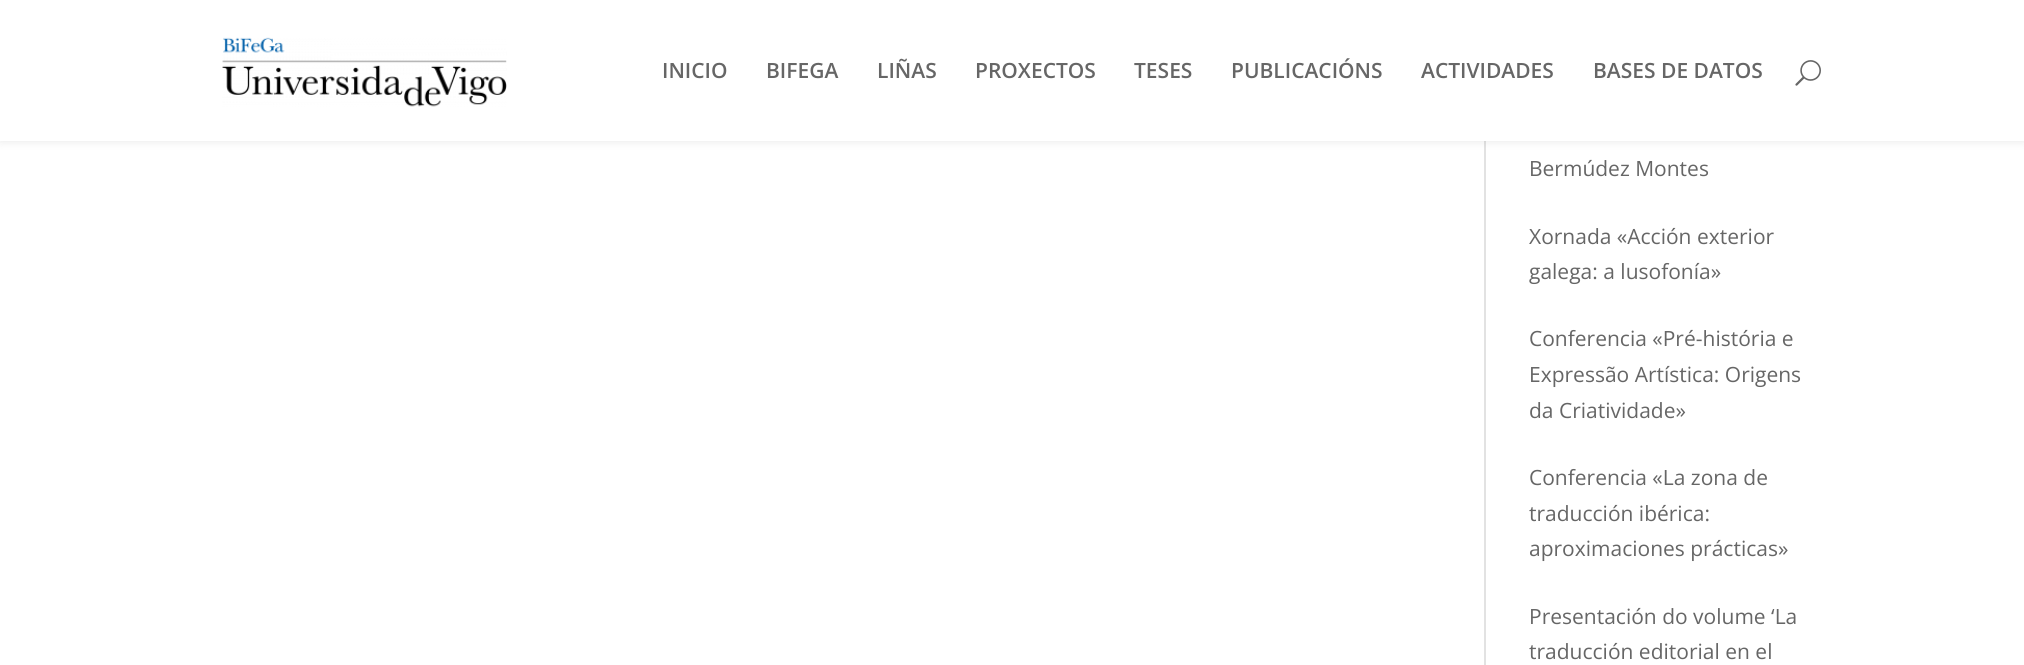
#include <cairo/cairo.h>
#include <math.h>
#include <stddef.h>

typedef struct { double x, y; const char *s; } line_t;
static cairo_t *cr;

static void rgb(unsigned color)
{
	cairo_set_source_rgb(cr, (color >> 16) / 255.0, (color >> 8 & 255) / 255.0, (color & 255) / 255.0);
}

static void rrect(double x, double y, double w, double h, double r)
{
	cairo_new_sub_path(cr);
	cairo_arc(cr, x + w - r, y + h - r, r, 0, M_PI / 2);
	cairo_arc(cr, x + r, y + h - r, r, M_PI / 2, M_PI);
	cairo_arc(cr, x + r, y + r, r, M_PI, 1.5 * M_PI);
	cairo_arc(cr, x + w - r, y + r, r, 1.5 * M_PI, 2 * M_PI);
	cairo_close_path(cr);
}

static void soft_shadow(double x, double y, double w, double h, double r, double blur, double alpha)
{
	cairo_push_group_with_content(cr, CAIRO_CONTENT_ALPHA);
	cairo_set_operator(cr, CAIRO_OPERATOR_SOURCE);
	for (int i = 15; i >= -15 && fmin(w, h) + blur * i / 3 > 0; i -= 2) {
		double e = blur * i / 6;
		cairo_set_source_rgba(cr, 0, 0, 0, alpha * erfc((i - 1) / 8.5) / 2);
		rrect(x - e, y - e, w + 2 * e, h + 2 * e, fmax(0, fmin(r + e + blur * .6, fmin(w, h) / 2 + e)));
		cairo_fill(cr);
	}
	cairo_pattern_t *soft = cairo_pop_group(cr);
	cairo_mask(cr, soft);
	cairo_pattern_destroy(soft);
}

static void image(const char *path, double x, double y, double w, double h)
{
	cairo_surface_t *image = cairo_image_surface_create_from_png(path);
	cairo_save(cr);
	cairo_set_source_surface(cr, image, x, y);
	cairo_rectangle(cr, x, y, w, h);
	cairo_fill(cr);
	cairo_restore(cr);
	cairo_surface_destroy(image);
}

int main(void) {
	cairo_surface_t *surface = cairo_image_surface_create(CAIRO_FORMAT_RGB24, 2024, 665);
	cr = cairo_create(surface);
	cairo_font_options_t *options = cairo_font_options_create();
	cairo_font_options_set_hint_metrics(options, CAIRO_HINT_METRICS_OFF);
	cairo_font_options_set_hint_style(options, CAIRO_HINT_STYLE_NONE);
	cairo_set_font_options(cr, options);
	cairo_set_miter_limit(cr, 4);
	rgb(0xffffff);
	cairo_paint(cr);
	rgb(0xe2e2e2);
	cairo_rectangle(cr, 1484, 141, 2, 524);
	cairo_fill(cr);
	rgb(0x000000);
	soft_shadow(0, 0, 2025, 141, 0, 5, 0.1);
	rgb(0xffffff);
	cairo_rectangle(cr, 0, 0, 2024, 141);
	cairo_fill(cr);
	image("img/1.png", 222, 37, 285, 70);
	image("img/2.png", 1795, 60, 26, 26);
	cairo_select_font_face(cr, "Open Sans SemiBold", CAIRO_FONT_SLANT_NORMAL, CAIRO_FONT_WEIGHT_NORMAL);
	cairo_set_font_size(cr, 21);
	rgb(0x666666);
	{
		static const line_t items[] = {
			{662, 78, "INICIO"},
			{766, 78, "BIFEGA"},
			{877, 78, "LIÑAS"},
			{975, 78, "PROXECTOS"},
			{1134, 78, "TESES"},
			{1231, 78, "PUBLICACIÓNS"},
			{1421, 78, "ACTIVIDADES"},
			{1593, 78, "BASES DE DATOS"},
		};
		for (size_t i = 0; i < sizeof items / sizeof *items; i++) {
			cairo_move_to(cr, items[i].x, items[i].y);
			cairo_show_text(cr, items[i].s);
		}
	}
	cairo_select_font_face(cr, "Open Sans", CAIRO_FONT_SLANT_NORMAL, CAIRO_FONT_WEIGHT_NORMAL);
	{
		static const line_t items[] = {
			{1529, 176, "Bermúdez Montes"},
			{1529, 244, "Xornada «Acción exterior"},
			{1529, 279, "galega: a lusofonía»"},
			{1529, 346, "Conferencia «Pré-história e"},
			{1529, 382, "Expressão Artística: Origens"},
			{1529, 418, "da Criatividade»"},
			{1529, 485, "Conferencia «La zona de"},
			{1529, 521, "traducción ibérica:"},
			{1529, 556, "aproximaciones prácticas»"},
			{1529, 624, "Presentación do volume ‘La"},
			{1529, 659, "traducción editorial en el"},
		};
		for (size_t i = 0; i < sizeof items / sizeof *items; i++) {
			cairo_move_to(cr, items[i].x, items[i].y);
			cairo_show_text(cr, items[i].s);
		}
	}
	cairo_surface_write_to_png(surface, "page.png");
	cairo_font_options_destroy(options);
	cairo_destroy(cr);
	cairo_surface_destroy(surface);
	return 0;
}
